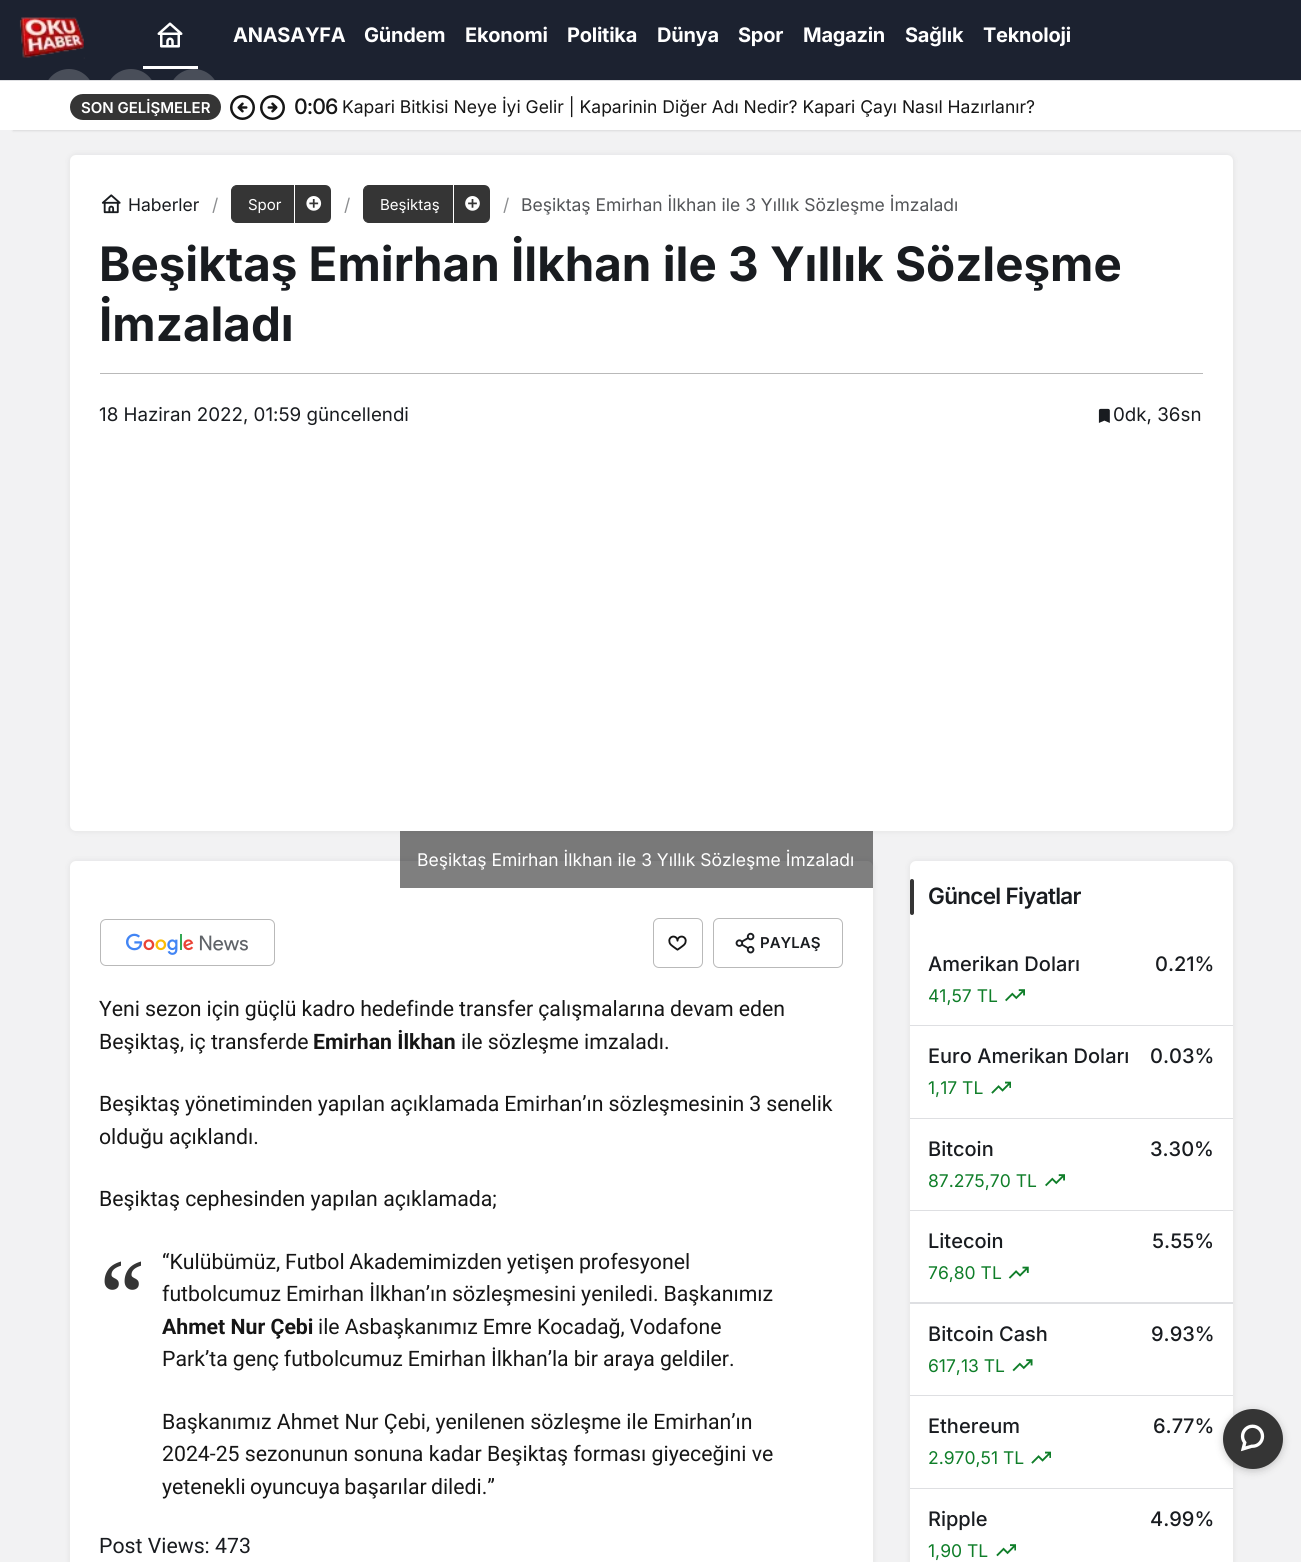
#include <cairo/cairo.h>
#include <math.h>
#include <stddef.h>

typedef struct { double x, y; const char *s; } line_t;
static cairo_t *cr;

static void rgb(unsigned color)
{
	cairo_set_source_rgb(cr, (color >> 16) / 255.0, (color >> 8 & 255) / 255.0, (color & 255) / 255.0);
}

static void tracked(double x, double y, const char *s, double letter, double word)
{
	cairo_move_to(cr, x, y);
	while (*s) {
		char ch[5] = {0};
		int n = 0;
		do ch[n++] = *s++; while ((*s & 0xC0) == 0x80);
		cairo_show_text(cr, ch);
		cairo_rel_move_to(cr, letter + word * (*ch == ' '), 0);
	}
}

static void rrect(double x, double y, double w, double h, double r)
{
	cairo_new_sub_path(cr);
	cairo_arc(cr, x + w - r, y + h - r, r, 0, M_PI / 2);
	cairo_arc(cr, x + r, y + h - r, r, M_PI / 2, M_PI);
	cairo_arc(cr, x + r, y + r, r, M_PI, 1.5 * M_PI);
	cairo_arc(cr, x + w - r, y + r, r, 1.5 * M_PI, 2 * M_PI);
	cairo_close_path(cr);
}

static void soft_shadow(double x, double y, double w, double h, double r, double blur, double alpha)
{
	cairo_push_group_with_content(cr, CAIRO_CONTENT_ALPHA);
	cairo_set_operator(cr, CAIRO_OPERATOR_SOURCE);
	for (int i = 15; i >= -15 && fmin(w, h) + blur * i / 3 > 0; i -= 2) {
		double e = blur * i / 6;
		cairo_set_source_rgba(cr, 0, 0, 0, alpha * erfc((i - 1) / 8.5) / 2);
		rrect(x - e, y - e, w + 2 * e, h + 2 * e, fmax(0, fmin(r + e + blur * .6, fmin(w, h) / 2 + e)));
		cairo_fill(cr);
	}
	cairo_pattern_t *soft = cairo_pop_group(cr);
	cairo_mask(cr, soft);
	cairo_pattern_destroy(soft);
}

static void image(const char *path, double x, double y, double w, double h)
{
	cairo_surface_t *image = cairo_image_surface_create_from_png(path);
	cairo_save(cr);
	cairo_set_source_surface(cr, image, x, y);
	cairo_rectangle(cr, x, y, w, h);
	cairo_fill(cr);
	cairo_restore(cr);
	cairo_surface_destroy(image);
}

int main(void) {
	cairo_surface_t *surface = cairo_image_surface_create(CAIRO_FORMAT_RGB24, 1301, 1562);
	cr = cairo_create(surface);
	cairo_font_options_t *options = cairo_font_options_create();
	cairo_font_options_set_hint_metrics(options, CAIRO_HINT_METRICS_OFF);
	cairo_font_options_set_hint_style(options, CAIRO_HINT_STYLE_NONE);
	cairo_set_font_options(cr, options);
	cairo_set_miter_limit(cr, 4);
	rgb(0xf2f2f3);
	cairo_paint(cr);
	rgb(0x000000);
	soft_shadow(13, 1, 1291, 130, 0, 1, 0.1);
	rgb(0x1c2230);
	cairo_rectangle(cr, 0, 0, 1301, 80);
	cairo_fill(cr);
	image("img/1.png", 19, 17, 66, 42);
	image("img/2.png", 157, 22, 26, 26);
	rgb(0xffffff);
	cairo_rectangle(cr, 143, 66, 55, 3);
	cairo_fill(cr);
	rgb(0x494e59);
	cairo_arc(cr, 69, 94, 25, 0, 2 * M_PI);
	cairo_fill(cr);
	cairo_arc(cr, 131, 94, 25, 0, 2 * M_PI);
	cairo_fill(cr);
	cairo_arc(cr, 194, 94, 25, 0, 2 * M_PI);
	cairo_fill(cr);
	rgb(0xffffff);
	cairo_rectangle(cr, 0, 81, 1301, 49);
	cairo_fill(cr);
	rgb(0xdedfe2);
	cairo_rectangle(cr, 0, 80, 1301, 1);
	cairo_fill(cr);
	rgb(0x353535);
	rrect(70, 94, 151, 26, 13);
	cairo_fill(cr);
	image("img/3.png", 230, 95, 25, 25);
	image("img/4.png", 260, 95, 25, 25);
	rgb(0x32353d);
	soft_shadow(70, 155, 1163, 676, 6, 3, 0.1);
	rgb(0xffffff);
	rrect(70, 155, 1163, 676, 6);
	cairo_fill(cr);
	image("img/5.png", 101, 194, 20, 20);
	rgb(0x353535);
	cairo_new_path(cr);
	cairo_move_to(cr, 237, 185.5);
	cairo_line_to(cr, 297.5, 185.5);
	cairo_line_to(cr, 297.5, 222.5);
	cairo_line_to(cr, 237, 222.5);
	cairo_curve_to(cr, 234, 222.5, 231.5, 220, 231.5, 217);
	cairo_line_to(cr, 231.5, 191);
	cairo_curve_to(cr, 231.5, 188, 234, 185.5, 237, 185.5);
	cairo_close_path(cr);
	cairo_fill_preserve(cr);
	cairo_set_line_width(cr, 1);
	cairo_stroke(cr);
	cairo_new_path(cr);
	cairo_move_to(cr, 294, 185);
	cairo_line_to(cr, 325, 185);
	cairo_curve_to(cr, 328.5, 185, 331, 187.5, 331, 191);
	cairo_line_to(cr, 331, 217);
	cairo_curve_to(cr, 331, 220.5, 328.5, 223, 325, 223);
	cairo_line_to(cr, 294, 223);
	cairo_close_path(cr);
	cairo_fill(cr);
	rgb(0xffffff);
	cairo_rectangle(cr, 294, 185, 1, 38);
	cairo_fill(cr);
	image("img/6.png", 306, 196, 16, 15);
	rgb(0x353535);
	cairo_new_path(cr);
	cairo_move_to(cr, 369, 185.5);
	cairo_line_to(cr, 455.5, 185.5);
	cairo_line_to(cr, 455.5, 222.5);
	cairo_line_to(cr, 369, 222.5);
	cairo_curve_to(cr, 366, 222.5, 363.5, 220, 363.5, 217);
	cairo_line_to(cr, 363.5, 191);
	cairo_curve_to(cr, 363.5, 188, 366, 185.5, 369, 185.5);
	cairo_close_path(cr);
	cairo_fill_preserve(cr);
	cairo_stroke(cr);
	cairo_new_path(cr);
	cairo_move_to(cr, 453, 185);
	cairo_line_to(cr, 484, 185);
	cairo_curve_to(cr, 487.5, 185, 490, 187.5, 490, 191);
	cairo_line_to(cr, 490, 217);
	cairo_curve_to(cr, 490, 220.5, 487.5, 223, 484, 223);
	cairo_line_to(cr, 453, 223);
	cairo_close_path(cr);
	cairo_fill(cr);
	rgb(0xffffff);
	cairo_rectangle(cr, 453, 185, 1, 38);
	cairo_fill(cr);
	image("img/7.png", 465, 196, 15, 15);
	rgb(0xb9b9b9);
	cairo_rectangle(cr, 100, 373, 1103, 1);
	cairo_fill(cr);
	image("img/8.png", 1098, 408, 12, 15);
	rgb(0x32353d);
	soft_shadow(70, 861, 803, 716, 6, 3, 0.1);
	rgb(0xffffff);
	rrect(70, 861, 803, 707, 6);
	cairo_fill(cr);
	cairo_set_source_rgba(cr, 0, 0, 0, 0.5);
	cairo_rectangle(cr, 400, 831, 473, 57);
	cairo_fill(cr);
	image("img/9.png", 126, 933, 122, 22);
	rrect(100.5, 919.5, 174, 46, 5.5);
	rgb(0xb9b9b9);
	cairo_stroke(cr);
	rrect(653.5, 918.5, 49, 49, 5.5);
	cairo_stroke(cr);
	image("img/10.png", 668, 935, 19, 16);
	rrect(713.5, 918.5, 129, 49, 5.5);
	cairo_stroke(cr);
	image("img/11.png", 735, 932, 20, 22);
	rgb(0x32353d);
	soft_shadow(910, 861, 323, 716, 6, 3, 0.1);
	rgb(0xffffff);
	rrect(910, 861, 323, 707, 6);
	cairo_fill(cr);
	rgb(0x353535);
	rrect(910, 879, 4, 36, 2);
	cairo_fill(cr);
	rgb(0xdedfe2);
	cairo_rectangle(cr, 910, 1025, 323, 1);
	cairo_fill(cr);
	image("img/12.png", 1005, 989, 20, 13);
	cairo_rectangle(cr, 910, 1118, 323, 1);
	cairo_fill(cr);
	image("img/13.png", 991, 1081, 20, 13);
	cairo_rectangle(cr, 910, 1210, 323, 1);
	cairo_fill(cr);
	image("img/12.png", 1045, 1174, 20, 13);
	cairo_rectangle(cr, 910, 1302, 323, 2);
	cairo_fill(cr);
	image("img/14.png", 1008, 1266, 21, 13);
	cairo_rectangle(cr, 910, 1395, 323, 1);
	cairo_fill(cr);
	image("img/15.png", 1012, 1359, 21, 13);
	cairo_rectangle(cr, 910, 1488, 323, 1);
	cairo_fill(cr);
	image("img/13.png", 1031, 1451, 20, 13);
	image("img/16.png", 996, 1544, 20, 13);
	rgb(0x000000);
	soft_shadow(1223, 1411, 60, 60, 30, 4, 0.2);
	rgb(0x353535);
	cairo_arc(cr, 1253, 1439, 30, 0, 2 * M_PI);
	cairo_fill(cr);
	image("img/17.png", 1240, 1424, 25, 28);
	cairo_select_font_face(cr, "Inter", CAIRO_FONT_SLANT_NORMAL, CAIRO_FONT_WEIGHT_BOLD);
	cairo_set_font_size(cr, 20);
	rgb(0xffffff);
	{
		static const line_t items[] = {
			{233, 42, "ANASAYFA"},
			{364, 42, "Gündem"},
			{465, 42, "Ekonomi"},
			{567, 42, "Politika"},
			{657, 42, "Dünya"},
			{738, 42, "Spor"},
			{803, 42, "Magazin"},
			{905, 42, "Sağlık"},
			{983, 42, "Teknoloji"},
		};
		for (size_t i = 0; i < sizeof items / sizeof *items; i++) {
			tracked(items[i].x, items[i].y, items[i].s, -0.25, 0);
		}
	}
	cairo_select_font_face(cr, "Inter SemiBold", CAIRO_FONT_SLANT_NORMAL, CAIRO_FONT_WEIGHT_NORMAL);
	cairo_set_font_size(cr, 15);
	cairo_move_to(cr, 81, 113);
	cairo_show_text(cr, "SON GELİŞMELER");
	cairo_select_font_face(cr, "Inter Medium", CAIRO_FONT_SLANT_NORMAL, CAIRO_FONT_WEIGHT_NORMAL);
	cairo_set_font_size(cr, 21.25);
	rgb(0x161616);
	tracked(294, 114, "0:06", -1, 0);
	cairo_select_font_face(cr, "Inter", CAIRO_FONT_SLANT_NORMAL, CAIRO_FONT_WEIGHT_NORMAL);
	cairo_set_font_size(cr, 17.5);
	cairo_move_to(cr, 342, 113);
	cairo_show_text(cr, "Kapari Bitkisi Neye İyi Gelir | Kaparinin Diğer Adı Nedir? Kapari Çayı Nasıl Hazırlanır?");
	rgb(0x191c20);
	cairo_move_to(cr, 128, 211);
	cairo_show_text(cr, "Haberler");
	rgb(0x8c8e90);
	cairo_move_to(cr, 212, 211);
	cairo_show_text(cr, "/");
	cairo_set_font_size(cr, 15);
	rgb(0xffffff);
	cairo_move_to(cr, 248, 210);
	cairo_show_text(cr, "Spor");
	cairo_set_font_size(cr, 17.5);
	rgb(0x8c8e90);
	cairo_move_to(cr, 344, 211);
	cairo_show_text(cr, "/");
	cairo_set_font_size(cr, 15);
	rgb(0xffffff);
	cairo_move_to(cr, 380, 210);
	cairo_show_text(cr, "Beşiktaş");
	cairo_set_font_size(cr, 17.5);
	rgb(0x8c8e90);
	cairo_move_to(cr, 503, 211);
	cairo_show_text(cr, "/");
	rgb(0x535558);
	cairo_move_to(cr, 521, 211);
	cairo_show_text(cr, "Beşiktaş Emirhan İlkhan ile 3 Yıllık Sözleşme İmzaladı");
	cairo_select_font_face(cr, "Inter", CAIRO_FONT_SLANT_NORMAL, CAIRO_FONT_WEIGHT_BOLD);
	cairo_set_font_size(cr, 47.5);
	rgb(0x191c20);
	cairo_move_to(cr, 99, 281);
	cairo_show_text(cr, "Beşiktaş Emirhan İlkhan ile 3 Yıllık Sözleşme");
	cairo_move_to(cr, 99, 341);
	cairo_show_text(cr, "İmzaladı");
	cairo_select_font_face(cr, "Inter", CAIRO_FONT_SLANT_NORMAL, CAIRO_FONT_WEIGHT_NORMAL);
	cairo_set_font_size(cr, 18.75);
	cairo_move_to(cr, 99, 421);
	cairo_show_text(cr, "18 Haziran 2022, 01:59 güncellendi");
	cairo_move_to(cr, 1113, 421);
	cairo_show_text(cr, "0dk, 36sn");
	cairo_set_font_size(cr, 17.5);
	rgb(0xffffff);
	cairo_move_to(cr, 417, 866);
	cairo_show_text(cr, "Beşiktaş Emirhan İlkhan ile 3 Yıllık Sözleşme İmzaladı");
	cairo_select_font_face(cr, "Inter SemiBold", CAIRO_FONT_SLANT_NORMAL, CAIRO_FONT_WEIGHT_NORMAL);
	cairo_set_font_size(cr, 15);
	rgb(0x191c20);
	cairo_move_to(cr, 760, 948);
	cairo_show_text(cr, "PAYLAŞ");
	cairo_select_font_face(cr, "Roboto", CAIRO_FONT_SLANT_NORMAL, CAIRO_FONT_WEIGHT_NORMAL);
	cairo_set_font_size(cr, 21.25);
	rgb(0x161616);
	tracked(99, 1016, "Yeni sezon için güçlü kadro hedefinde transfer çalışmalarına devam eden", 0, -0.25);
	cairo_move_to(cr, 99, 1049);
	cairo_show_text(cr, "Beşiktaş, iç transferde");
	cairo_select_font_face(cr, "Roboto", CAIRO_FONT_SLANT_NORMAL, CAIRO_FONT_WEIGHT_BOLD);
	cairo_move_to(cr, 313, 1049);
	cairo_show_text(cr, "Emirhan İlkhan");
	cairo_select_font_face(cr, "Roboto", CAIRO_FONT_SLANT_NORMAL, CAIRO_FONT_WEIGHT_NORMAL);
	cairo_move_to(cr, 461, 1049);
	cairo_show_text(cr, "ile sözleşme imzaladı.");
	tracked(99, 1111, "Beşiktaş yönetiminden yapılan açıklamada Emirhan’ın sözleşmesinin 3 senelik", 0, -0.25);
	cairo_move_to(cr, 99, 1144);
	cairo_show_text(cr, "olduğu açıklandı.");
	cairo_move_to(cr, 99, 1206);
	cairo_show_text(cr, "Beşiktaş cephesinden yapılan açıklamada;");
	cairo_select_font_face(cr, "Noto Serif", CAIRO_FONT_SLANT_NORMAL, CAIRO_FONT_WEIGHT_NORMAL);
	cairo_set_font_size(cr, 100);
	rgb(0x353535);
	cairo_move_to(cr, 99, 1333);
	cairo_show_text(cr, "“");
	cairo_select_font_face(cr, "Roboto", CAIRO_FONT_SLANT_NORMAL, CAIRO_FONT_WEIGHT_NORMAL);
	cairo_set_font_size(cr, 21.25);
	rgb(0x161616);
	tracked(162, 1269, "“Kulübümüz, Futbol Akademimizden yetişen profesyonel", 0, -0.5);
	tracked(162, 1301, "futbolcumuz Emirhan İlkhan’ın sözleşmesini yeniledi. Başkanımız", 0, -0.25);
	cairo_select_font_face(cr, "Roboto", CAIRO_FONT_SLANT_NORMAL, CAIRO_FONT_WEIGHT_BOLD);
	cairo_move_to(cr, 162, 1334);
	cairo_show_text(cr, "Ahmet Nur Çebi");
	cairo_select_font_face(cr, "Roboto", CAIRO_FONT_SLANT_NORMAL, CAIRO_FONT_WEIGHT_NORMAL);
	tracked(318, 1334, "ile Asbaşkanımız Emre Kocadağ, Vodafone", 0, -0.25);
	tracked(162, 1366, "Park’ta genç futbolcumuz Emirhan İlkhan’la bir araya geldiler.", 0, -0.25);
	cairo_move_to(cr, 162, 1429);
	cairo_show_text(cr, "Başkanımız Ahmet Nur Çebi, yenilenen sözleşme ile Emirhan’ın");
	cairo_move_to(cr, 162, 1461);
	cairo_show_text(cr, "2024-25 sezonunun sonuna kadar Beşiktaş forması giyeceğini ve");
	tracked(162, 1494, "yetenekli oyuncuya başarılar diledi.”", 0, -1);
	rgb(0x191c20);
	cairo_move_to(cr, 99, 1553);
	cairo_show_text(cr, "Post Views: 473");
	cairo_select_font_face(cr, "Inter SemiBold", CAIRO_FONT_SLANT_NORMAL, CAIRO_FONT_WEIGHT_NORMAL);
	cairo_set_font_size(cr, 22.5);
	tracked(928, 904, "Güncel Fiyatlar", -0.7, 0);
	cairo_select_font_face(cr, "Inter Medium", CAIRO_FONT_SLANT_NORMAL, CAIRO_FONT_WEIGHT_NORMAL);
	cairo_set_font_size(cr, 20);
	cairo_move_to(cr, 928, 971);
	cairo_show_text(cr, "Amerikan Doları");
	cairo_move_to(cr, 1155, 971);
	cairo_show_text(cr, "0.21%");
	cairo_select_font_face(cr, "Inter", CAIRO_FONT_SLANT_NORMAL, CAIRO_FONT_WEIGHT_NORMAL);
	cairo_set_font_size(cr, 17.5);
	rgb(0x0f7e29);
	cairo_move_to(cr, 928, 1002);
	cairo_show_text(cr, "41,57 TL");
	cairo_select_font_face(cr, "Inter Medium", CAIRO_FONT_SLANT_NORMAL, CAIRO_FONT_WEIGHT_NORMAL);
	cairo_set_font_size(cr, 20);
	rgb(0x191c20);
	cairo_move_to(cr, 928, 1063);
	cairo_show_text(cr, "Euro Amerikan Doları");
	cairo_move_to(cr, 1150, 1063);
	cairo_show_text(cr, "0.03%");
	cairo_select_font_face(cr, "Inter", CAIRO_FONT_SLANT_NORMAL, CAIRO_FONT_WEIGHT_NORMAL);
	cairo_set_font_size(cr, 17.5);
	rgb(0x0f7e29);
	cairo_move_to(cr, 928, 1094);
	cairo_show_text(cr, "1,17 TL");
	cairo_select_font_face(cr, "Inter Medium", CAIRO_FONT_SLANT_NORMAL, CAIRO_FONT_WEIGHT_NORMAL);
	cairo_set_font_size(cr, 20);
	rgb(0x191c20);
	cairo_move_to(cr, 928, 1156);
	cairo_show_text(cr, "Bitcoin");
	cairo_move_to(cr, 1150, 1156);
	cairo_show_text(cr, "3.30%");
	cairo_select_font_face(cr, "Inter", CAIRO_FONT_SLANT_NORMAL, CAIRO_FONT_WEIGHT_NORMAL);
	cairo_set_font_size(cr, 17.5);
	rgb(0x0f7e29);
	cairo_move_to(cr, 928, 1187);
	cairo_show_text(cr, "87.275,70 TL");
	cairo_select_font_face(cr, "Inter Medium", CAIRO_FONT_SLANT_NORMAL, CAIRO_FONT_WEIGHT_NORMAL);
	cairo_set_font_size(cr, 20);
	rgb(0x191c20);
	cairo_move_to(cr, 928, 1248);
	cairo_show_text(cr, "Litecoin");
	cairo_move_to(cr, 1152, 1248);
	cairo_show_text(cr, "5.55%");
	cairo_select_font_face(cr, "Inter", CAIRO_FONT_SLANT_NORMAL, CAIRO_FONT_WEIGHT_NORMAL);
	cairo_set_font_size(cr, 17.5);
	rgb(0x0f7e29);
	cairo_move_to(cr, 928, 1279);
	cairo_show_text(cr, "76,80 TL");
	cairo_select_font_face(cr, "Inter Medium", CAIRO_FONT_SLANT_NORMAL, CAIRO_FONT_WEIGHT_NORMAL);
	cairo_set_font_size(cr, 20);
	rgb(0x191c20);
	cairo_move_to(cr, 928, 1341);
	cairo_show_text(cr, "Bitcoin Cash");
	cairo_move_to(cr, 1151, 1341);
	cairo_show_text(cr, "9.93%");
	cairo_select_font_face(cr, "Inter", CAIRO_FONT_SLANT_NORMAL, CAIRO_FONT_WEIGHT_NORMAL);
	cairo_set_font_size(cr, 17.5);
	rgb(0x0f7e29);
	cairo_move_to(cr, 928, 1372);
	cairo_show_text(cr, "617,13 TL");
	cairo_select_font_face(cr, "Inter Medium", CAIRO_FONT_SLANT_NORMAL, CAIRO_FONT_WEIGHT_NORMAL);
	cairo_set_font_size(cr, 20);
	rgb(0x191c20);
	cairo_move_to(cr, 928, 1433);
	cairo_show_text(cr, "Ethereum");
	cairo_move_to(cr, 1153, 1433);
	cairo_show_text(cr, "6.77%");
	cairo_select_font_face(cr, "Inter", CAIRO_FONT_SLANT_NORMAL, CAIRO_FONT_WEIGHT_NORMAL);
	cairo_set_font_size(cr, 17.5);
	rgb(0x0f7e29);
	cairo_move_to(cr, 928, 1464);
	cairo_show_text(cr, "2.970,51 TL");
	cairo_select_font_face(cr, "Inter Medium", CAIRO_FONT_SLANT_NORMAL, CAIRO_FONT_WEIGHT_NORMAL);
	cairo_set_font_size(cr, 20);
	rgb(0x191c20);
	cairo_move_to(cr, 928, 1526);
	cairo_show_text(cr, "Ripple");
	cairo_move_to(cr, 1150, 1526);
	cairo_show_text(cr, "4.99%");
	cairo_select_font_face(cr, "Inter", CAIRO_FONT_SLANT_NORMAL, CAIRO_FONT_WEIGHT_NORMAL);
	cairo_set_font_size(cr, 17.5);
	rgb(0x0f7e29);
	cairo_move_to(cr, 928, 1557);
	cairo_show_text(cr, "1,90 TL");
	cairo_surface_write_to_png(surface, "page.png");
	cairo_font_options_destroy(options);
	cairo_destroy(cr);
	cairo_surface_destroy(surface);
	return 0;
}
